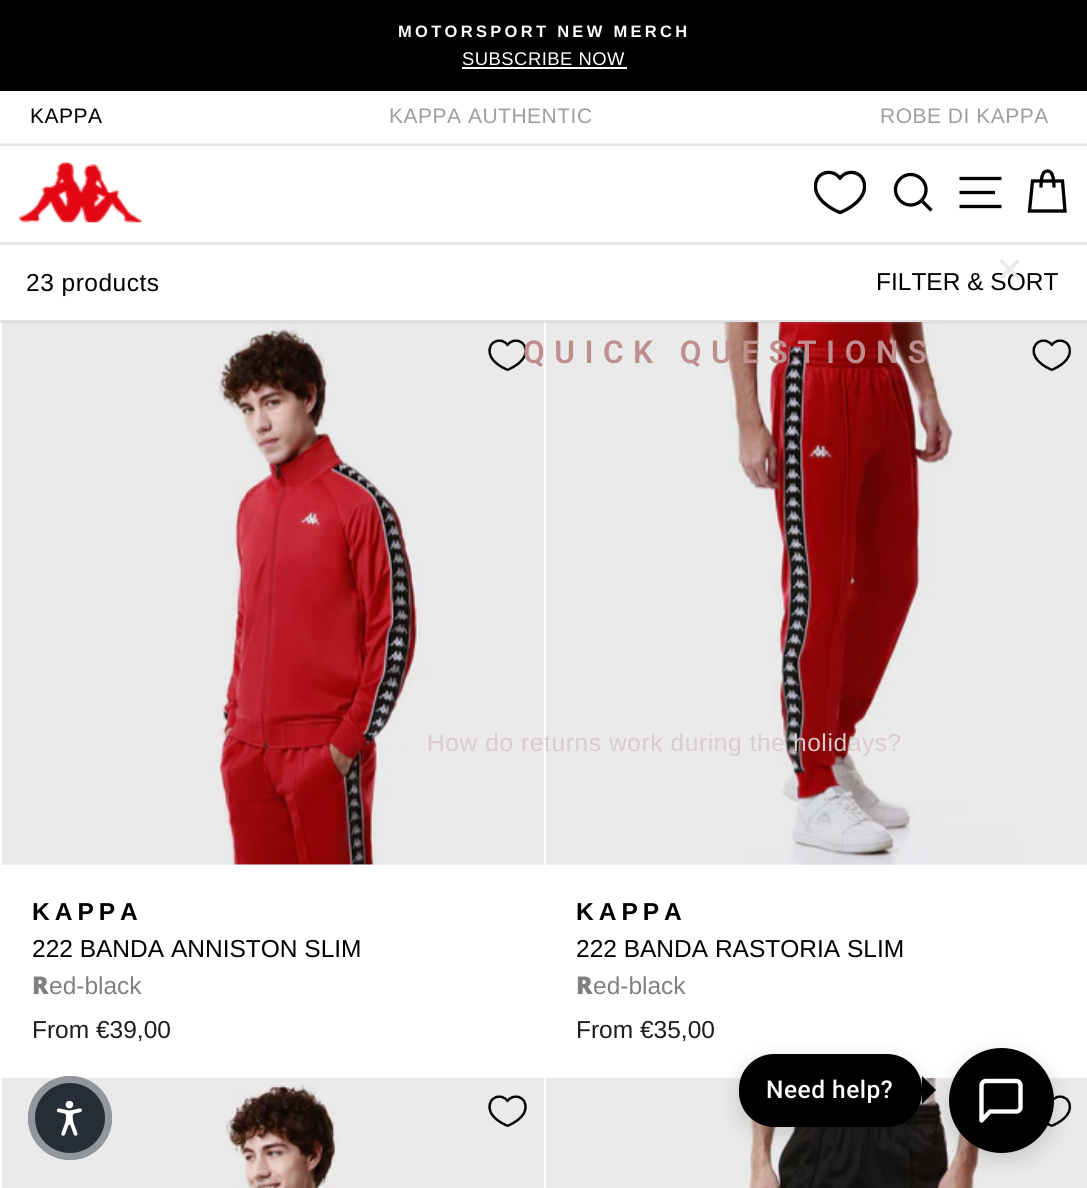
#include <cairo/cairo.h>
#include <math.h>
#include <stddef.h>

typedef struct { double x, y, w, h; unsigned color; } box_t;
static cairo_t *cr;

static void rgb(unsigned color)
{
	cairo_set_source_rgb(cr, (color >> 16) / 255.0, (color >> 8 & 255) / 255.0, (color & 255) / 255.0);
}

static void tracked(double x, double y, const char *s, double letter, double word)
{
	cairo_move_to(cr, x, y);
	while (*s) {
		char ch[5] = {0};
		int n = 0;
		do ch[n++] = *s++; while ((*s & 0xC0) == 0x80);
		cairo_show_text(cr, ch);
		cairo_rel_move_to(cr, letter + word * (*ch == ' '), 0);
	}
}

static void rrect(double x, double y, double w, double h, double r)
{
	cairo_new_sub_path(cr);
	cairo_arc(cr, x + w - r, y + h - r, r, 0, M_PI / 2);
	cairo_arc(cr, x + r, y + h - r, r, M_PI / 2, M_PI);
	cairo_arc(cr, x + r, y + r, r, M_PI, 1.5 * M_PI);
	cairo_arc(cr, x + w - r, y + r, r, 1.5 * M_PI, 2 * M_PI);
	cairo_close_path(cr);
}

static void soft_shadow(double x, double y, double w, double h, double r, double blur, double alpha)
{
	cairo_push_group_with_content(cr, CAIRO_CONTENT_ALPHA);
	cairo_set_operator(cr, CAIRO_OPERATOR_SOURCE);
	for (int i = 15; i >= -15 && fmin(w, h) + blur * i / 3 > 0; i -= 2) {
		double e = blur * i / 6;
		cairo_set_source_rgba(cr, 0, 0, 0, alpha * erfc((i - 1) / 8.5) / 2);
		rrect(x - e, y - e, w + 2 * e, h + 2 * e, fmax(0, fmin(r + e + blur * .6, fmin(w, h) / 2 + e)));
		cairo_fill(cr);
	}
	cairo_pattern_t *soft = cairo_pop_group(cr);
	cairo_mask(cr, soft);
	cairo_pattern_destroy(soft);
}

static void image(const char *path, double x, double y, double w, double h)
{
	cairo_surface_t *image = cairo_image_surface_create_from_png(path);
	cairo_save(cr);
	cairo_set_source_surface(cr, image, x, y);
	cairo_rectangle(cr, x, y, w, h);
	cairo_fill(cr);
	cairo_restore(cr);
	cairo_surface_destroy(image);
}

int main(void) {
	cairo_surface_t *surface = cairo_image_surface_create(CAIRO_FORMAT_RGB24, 1087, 1188);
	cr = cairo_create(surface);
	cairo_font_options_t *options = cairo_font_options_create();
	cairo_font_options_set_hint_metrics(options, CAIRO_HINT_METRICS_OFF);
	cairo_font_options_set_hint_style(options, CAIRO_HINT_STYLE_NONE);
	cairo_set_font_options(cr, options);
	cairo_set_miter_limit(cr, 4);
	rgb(0xffffff);
	cairo_paint(cr);
	{
		static const box_t items[] = {
			{546, 322, 541, 543, 0xf2f2f2},
			{2, 322, 542, 543, 0xf2f2f2},
			{0, 0, 1087, 91, 0x000000},
			{462, 67, 165, 2, 0xffffff},
		};
		for (size_t i = 0; i < sizeof items / sizeof *items; i++) {
			rgb(items[i].color);
			cairo_rectangle(cr, items[i].x, items[i].y, items[i].w, items[i].h);
			cairo_fill(cr);
		}
	}
	image("img/4.png", 2, 322, 542, 543);
	image("img/6.png", 546, 322, 541, 543);
	cairo_save(cr);
	cairo_set_fill_rule(cr, CAIRO_FILL_RULE_EVEN_ODD);
	cairo_new_path(cr);
	cairo_move_to(cr, 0, 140);
	cairo_line_to(cr, 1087, 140);
	cairo_line_to(cr, 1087, 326);
	cairo_line_to(cr, 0, 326);
	cairo_close_path(cr);
	cairo_move_to(cr, 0, 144);
	cairo_line_to(cr, 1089, 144);
	cairo_line_to(cr, 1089, 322);
	cairo_line_to(cr, 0, 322);
	cairo_close_path(cr);
	cairo_clip(cr);
	rgb(0x000000);
	soft_shadow(0, 144, 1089, 178, 0, 1, 0.2);
	cairo_restore(cr);
	rgb(0xe2e2e2);
	cairo_rectangle(cr, 0, 144, 1087, 2);
	cairo_fill(cr);
	cairo_rectangle(cr, 0, 320, 1087, 2);
	cairo_fill(cr);
	image("img/1.png", 19, 162, 123, 61);
	image("img/2.png", 814, 170, 52, 45);
	cairo_new_path(cr);
	cairo_move_to(cr, 926, 189.5);
	cairo_curve_to(cr, 926, 198, 919, 205, 910.5, 205);
	cairo_curve_to(cr, 902.5, 205, 895.5, 198, 895.5, 189.5);
	cairo_curve_to(cr, 895.5, 181.5, 902.5, 174.5, 910.5, 174.5);
	cairo_curve_to(cr, 919, 174.5, 926, 181.5, 926, 189.5);
	cairo_close_path(cr);
	cairo_move_to(cr, 931.5, 210.5);
	cairo_line_to(cr, 921.5, 200.5);
	rgb(0x000000);
	cairo_set_line_width(cr, 3.3);
	cairo_stroke(cr);
	cairo_new_path(cr);
	cairo_move_to(cr, 959.5, 178.5);
	cairo_line_to(cr, 1001.5, 178.5);
	cairo_move_to(cr, 959.5, 192.5);
	cairo_line_to(cr, 995, 192.5);
	cairo_move_to(cr, 959.5, 206.5);
	cairo_line_to(cr, 1001.5, 206.5);
	cairo_stroke(cr);
	cairo_new_path(cr);
	cairo_move_to(cr, 1041, 187.5);
	cairo_curve_to(cr, 1041, 174.5, 1043.5, 171, 1047.5, 171);
	cairo_curve_to(cr, 1051, 171, 1054, 174.5, 1054, 187.5);
	cairo_move_to(cr, 1032.5, 181);
	cairo_line_to(cr, 1062.5, 181);
	cairo_line_to(cr, 1065, 211);
	cairo_line_to(cr, 1029.5, 211);
	cairo_close_path(cr);
	cairo_stroke(cr);
	rgb(0xe8e8e1);
	cairo_rectangle(cr, 0, 242, 1087, 1);
	cairo_fill(cr);
	rgb(0xe5e5e5);
	cairo_rectangle(cr, 0, 243, 1087, 2);
	cairo_fill(cr);
	image("img/3.png", 488, 339, 39, 32);
	image("img/5.png", 1032, 339, 39, 32);
	image("img/7.png", 2, 1078, 542, 110);
	image("img/3.png", 488, 1095, 39, 32);
	image("img/8.png", 546, 1078, 541, 110);
	image("img/9.png", 1047, 1095, 24, 32);
	rgb(0x000000);
	soft_shadow(949, 1055, 105, 105, 52.5, 10.5, 0.15);
	rgb(0x000000);
	cairo_arc(cr, 1001.5, 1100.5, 52.5, 0, 2 * M_PI);
	cairo_fill(cr);
	rgb(0x000000);
	soft_shadow(739, 1061, 183, 73, 35, 10.5, 0.15);
	rgb(0x000000);
	rrect(739, 1054, 183, 73, 35);
	cairo_fill(cr);
	cairo_new_path(cr);
	cairo_move_to(cr, 922, 1104);
	cairo_line_to(cr, 922, 1076);
	cairo_line_to(cr, 936, 1090);
	cairo_close_path(cr);
	cairo_fill(cr);
	cairo_new_path(cr);
	cairo_move_to(cr, 1020.5, 1107.5);
	cairo_curve_to(cr, 1020.5, 1109.5, 1018.5, 1111.5, 1016.5, 1111.5);
	cairo_line_to(cr, 990, 1111.5);
	cairo_line_to(cr, 981.5, 1120.5);
	cairo_line_to(cr, 981.5, 1085.5);
	cairo_curve_to(cr, 981.5, 1083, 983.5, 1081, 985.5, 1081);
	cairo_line_to(cr, 1016.5, 1081);
	cairo_curve_to(cr, 1018.5, 1081, 1020.5, 1083, 1020.5, 1085.5);
	cairo_close_path(cr);
	rgb(0xffffff);
	cairo_set_line_width(cr, 4.4);
	cairo_set_line_cap(cr, CAIRO_LINE_CAP_ROUND);
	cairo_set_line_join(cr, CAIRO_LINE_JOIN_ROUND);
	cairo_stroke(cr);
	rgb(0x272d36);
	cairo_arc(cr, 70, 1118, 42, 0, 2 * M_PI);
	cairo_fill(cr);
	cairo_arc(cr, 70, 1118, 38.5, 0, 2 * M_PI);
	cairo_set_source_rgba(cr, 1, 1, 1, 0.5);
	cairo_set_line_width(cr, 7);
	cairo_set_line_cap(cr, CAIRO_LINE_CAP_BUTT);
	cairo_set_line_join(cr, CAIRO_LINE_JOIN_MITER);
	cairo_stroke(cr);
	image("img/10.png", 56, 1101, 26, 35);
	cairo_select_font_face(cr, "Liberation Sans", CAIRO_FONT_SLANT_NORMAL, CAIRO_FONT_WEIGHT_BOLD);
	cairo_set_font_size(cr, 16.5);
	rgb(0xffffff);
	tracked(398, 37, "MOTORSPORT NEW MERCH", 3.3, 0);
	cairo_select_font_face(cr, "Liberation Sans", CAIRO_FONT_SLANT_NORMAL, CAIRO_FONT_WEIGHT_NORMAL);
	cairo_set_font_size(cr, 18.4);
	tracked(462, 65, "SUBSCRIBE NOW", 0.5, 0);
	cairo_set_font_size(cr, 21);
	rgb(0x000000);
	tracked(30, 123, "KAPPA", 0.5, 0);
	rgb(0x9e9e9e);
	tracked(389, 123, "KAPPA AUTHENTIC", 0.5, 0);
	tracked(880, 123, "ROBE DI KAPPA", 0.5, 0);
	cairo_set_font_size(cr, 24.5);
	rgb(0x000000);
	tracked(26, 291, "23 products", 0.5, 0);
	cairo_move_to(cr, 876, 290);
	cairo_show_text(cr, "FILTER & SORT");
	cairo_select_font_face(cr, "Liberation Sans", CAIRO_FONT_SLANT_NORMAL, CAIRO_FONT_WEIGHT_BOLD);
	tracked(32, 920, "KAPPA", 5, 0);
	cairo_select_font_face(cr, "Liberation Sans", CAIRO_FONT_SLANT_NORMAL, CAIRO_FONT_WEIGHT_NORMAL);
	cairo_move_to(cr, 32, 957);
	cairo_show_text(cr, "222 BANDA ANNISTON SLIM");
	cairo_select_font_face(cr, "Noto Sans Black", CAIRO_FONT_SLANT_NORMAL, CAIRO_FONT_WEIGHT_NORMAL);
	rgb(0x808080);
	cairo_move_to(cr, 32, 994);
	cairo_show_text(cr, "R");
	cairo_select_font_face(cr, "Liberation Sans", CAIRO_FONT_SLANT_NORMAL, CAIRO_FONT_WEIGHT_NORMAL);
	cairo_move_to(cr, 49, 994);
	cairo_show_text(cr, "ed-black");
	rgb(0x1c1d1d);
	cairo_move_to(cr, 32, 1038);
	cairo_show_text(cr, "From €39,00");
	cairo_select_font_face(cr, "Liberation Sans", CAIRO_FONT_SLANT_NORMAL, CAIRO_FONT_WEIGHT_BOLD);
	rgb(0x000000);
	tracked(576, 920, "KAPPA", 5, 0);
	cairo_select_font_face(cr, "Liberation Sans", CAIRO_FONT_SLANT_NORMAL, CAIRO_FONT_WEIGHT_NORMAL);
	cairo_move_to(cr, 576, 957);
	cairo_show_text(cr, "222 BANDA RASTORIA SLIM");
	cairo_select_font_face(cr, "Noto Sans Black", CAIRO_FONT_SLANT_NORMAL, CAIRO_FONT_WEIGHT_NORMAL);
	rgb(0x808080);
	cairo_move_to(cr, 576, 994);
	cairo_show_text(cr, "R");
	cairo_select_font_face(cr, "Liberation Sans", CAIRO_FONT_SLANT_NORMAL, CAIRO_FONT_WEIGHT_NORMAL);
	cairo_move_to(cr, 593, 994);
	cairo_show_text(cr, "ed-black");
	rgb(0x1c1d1d);
	cairo_move_to(cr, 576, 1038);
	cairo_show_text(cr, "From €35,00");
	cairo_select_font_face(cr, "DejaVu Sans", CAIRO_FONT_SLANT_NORMAL, CAIRO_FONT_WEIGHT_NORMAL);
	cairo_set_font_size(cr, 35);
	rgb(0xe9e9e9);
	tracked(995, 282, "✕", 1, 0);
	cairo_select_font_face(cr, "Roboto SemiBold", CAIRO_FONT_SLANT_NORMAL, CAIRO_FONT_WEIGHT_NORMAL);
	cairo_set_font_size(cr, 31.5);
	rgb(0xbe8f8e);
	tracked(523, 363, "QUICK QUESTIONS", 9.5, 0);
	cairo_select_font_face(cr, "Liberation Sans", CAIRO_FONT_SLANT_NORMAL, CAIRO_FONT_WEIGHT_NORMAL);
	cairo_set_font_size(cr, 24.5);
	rgb(0xdacbcc);
	tracked(427, 751, "How do returns work during the holidays?", 0.6, 0);
	cairo_select_font_face(cr, "Roboto Medium", CAIRO_FONT_SLANT_NORMAL, CAIRO_FONT_WEIGHT_NORMAL);
	rgb(0xffffff);
	tracked(766, 1098, "Need help?", 0.5, 0);
	cairo_surface_write_to_png(surface, "page.png");
	cairo_font_options_destroy(options);
	cairo_destroy(cr);
	cairo_surface_destroy(surface);
	return 0;
}
